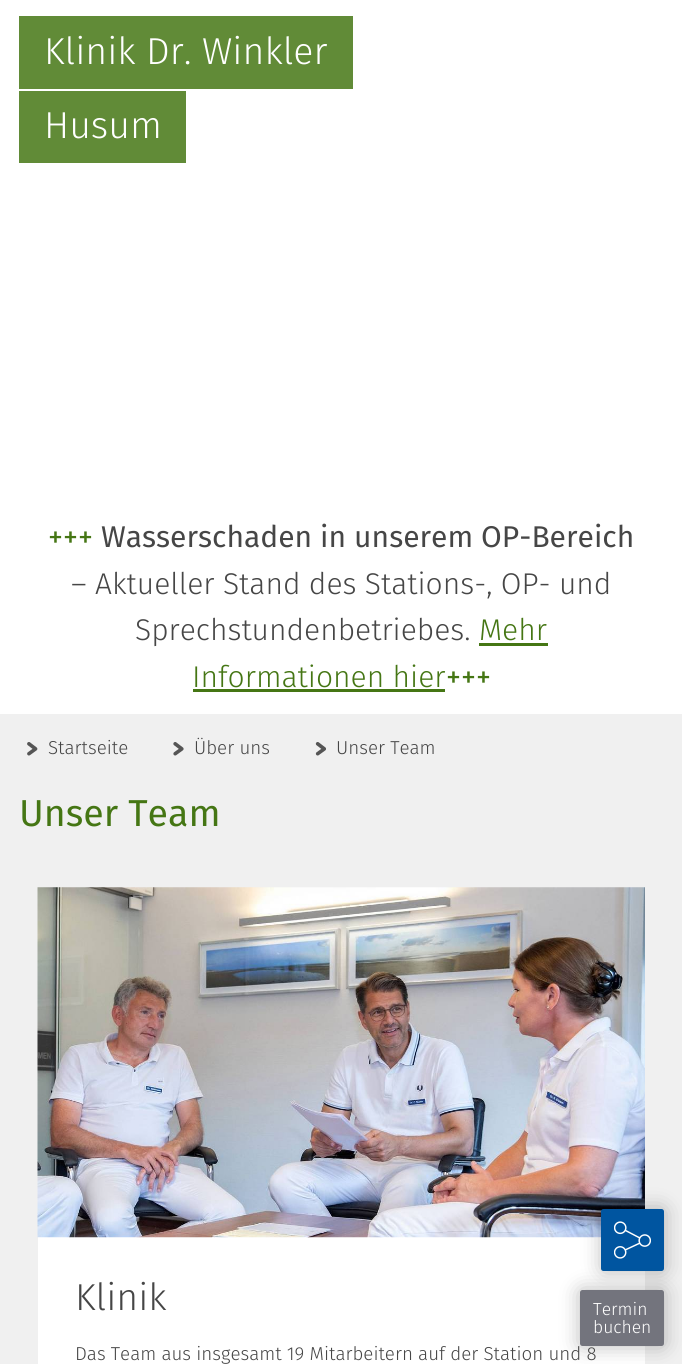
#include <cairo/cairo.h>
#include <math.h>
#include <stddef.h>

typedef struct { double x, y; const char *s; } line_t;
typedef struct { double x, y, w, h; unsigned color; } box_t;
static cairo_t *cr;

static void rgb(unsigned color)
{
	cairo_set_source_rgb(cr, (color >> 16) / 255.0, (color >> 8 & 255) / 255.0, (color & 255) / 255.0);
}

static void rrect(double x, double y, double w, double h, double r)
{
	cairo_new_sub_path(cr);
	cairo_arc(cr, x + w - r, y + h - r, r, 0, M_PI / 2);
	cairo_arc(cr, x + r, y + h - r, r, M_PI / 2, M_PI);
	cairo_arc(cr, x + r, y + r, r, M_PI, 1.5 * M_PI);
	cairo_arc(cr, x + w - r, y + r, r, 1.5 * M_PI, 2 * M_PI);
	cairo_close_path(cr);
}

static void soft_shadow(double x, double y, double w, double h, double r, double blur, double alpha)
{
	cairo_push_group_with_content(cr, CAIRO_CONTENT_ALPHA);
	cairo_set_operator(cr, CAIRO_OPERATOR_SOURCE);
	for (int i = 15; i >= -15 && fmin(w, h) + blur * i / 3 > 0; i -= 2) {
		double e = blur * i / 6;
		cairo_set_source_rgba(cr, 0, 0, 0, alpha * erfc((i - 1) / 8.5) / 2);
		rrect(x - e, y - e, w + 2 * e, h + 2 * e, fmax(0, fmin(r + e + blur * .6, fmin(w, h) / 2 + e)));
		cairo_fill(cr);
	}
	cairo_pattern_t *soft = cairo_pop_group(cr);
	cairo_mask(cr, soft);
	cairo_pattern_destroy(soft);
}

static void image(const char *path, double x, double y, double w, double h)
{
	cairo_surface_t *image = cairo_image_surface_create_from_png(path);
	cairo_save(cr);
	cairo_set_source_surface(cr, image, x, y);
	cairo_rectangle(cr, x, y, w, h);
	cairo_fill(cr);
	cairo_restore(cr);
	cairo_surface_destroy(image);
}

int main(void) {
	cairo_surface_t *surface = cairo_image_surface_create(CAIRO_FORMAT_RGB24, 682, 1364);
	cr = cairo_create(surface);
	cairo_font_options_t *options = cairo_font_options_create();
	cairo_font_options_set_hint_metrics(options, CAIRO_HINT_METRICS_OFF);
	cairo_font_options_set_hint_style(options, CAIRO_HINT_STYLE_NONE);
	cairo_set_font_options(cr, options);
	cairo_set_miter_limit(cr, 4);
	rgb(0xffffff);
	cairo_paint(cr);
	{
		static const box_t items[] = {
			{19, 16, 334, 73, 0x618b37},
			{19, 91, 167, 72, 0x618b37},
			{479, 643, 69, 3, 0x457614},
			{193, 689, 252, 3, 0x457614},
			{0, 714, 682, 650, 0xf0f0f0},
		};
		for (size_t i = 0; i < sizeof items / sizeof *items; i++) {
			rgb(items[i].color);
			cairo_rectangle(cr, items[i].x, items[i].y, items[i].w, items[i].h);
			cairo_fill(cr);
		}
	}
	image("img/1.png", 27, 742, 11, 14);
	image("img/2.png", 173, 742, 11, 14);
	image("img/3.png", 315, 742, 11, 14);
	rgb(0xffffff);
	cairo_rectangle(cr, 38, 1237, 607, 127);
	cairo_fill(cr);
	image("img/4.png", 37, 887, 608, 351);
	rgb(0x000000);
	soft_shadow(603, 1210, 60, 60, 1, 10.5, 0.3);
	rgb(0x0055a0);
	rrect(601, 1209, 63, 62, 2.5);
	cairo_fill(cr);
	image("img/5.png", 614, 1221, 37, 38);
	rgb(0x000000);
	soft_shadow(581, 1291, 82, 54, 1, 10.5, 0.3);
	cairo_select_font_face(cr, "Fira Sans Light", CAIRO_FONT_SLANT_NORMAL, CAIRO_FONT_WEIGHT_NORMAL);
	cairo_set_font_size(cr, 37.5);
	rgb(0xffffff);
	cairo_move_to(cr, 44, 64);
	cairo_show_text(cr, "Klinik Dr. Winkler");
	cairo_move_to(cr, 44, 138);
	cairo_show_text(cr, "Husum");
	cairo_select_font_face(cr, "Fira Sans", CAIRO_FONT_SLANT_NORMAL, CAIRO_FONT_WEIGHT_NORMAL);
	cairo_set_font_size(cr, 30);
	rgb(0x457614);
	cairo_move_to(cr, 48, 547);
	cairo_show_text(cr, "+++");
	rgb(0x464646);
	cairo_move_to(cr, 101, 547);
	cairo_show_text(cr, "Wasserschaden in unserem OP-Bereich");
	cairo_select_font_face(cr, "Fira Sans Light", CAIRO_FONT_SLANT_NORMAL, CAIRO_FONT_WEIGHT_NORMAL);
	cairo_move_to(cr, 71, 594);
	cairo_show_text(cr, "– Aktueller Stand des Stations-, OP- und");
	cairo_move_to(cr, 135, 640);
	cairo_show_text(cr, "Sprechstundenbetriebes.");
	rgb(0x457614);
	cairo_move_to(cr, 479, 640);
	cairo_show_text(cr, "Mehr");
	cairo_move_to(cr, 192, 687);
	cairo_show_text(cr, "Informationen hier");
	cairo_select_font_face(cr, "Fira Sans", CAIRO_FONT_SLANT_NORMAL, CAIRO_FONT_WEIGHT_NORMAL);
	cairo_move_to(cr, 446, 687);
	cairo_show_text(cr, "+++");
	cairo_select_font_face(cr, "Fira Sans Light", CAIRO_FONT_SLANT_NORMAL, CAIRO_FONT_WEIGHT_NORMAL);
	cairo_set_font_size(cr, 18.75);
	rgb(0x464646);
	{
		static const line_t items[] = {
			{48, 754, "Startseite"},
			{194, 754, "Über uns"},
			{336, 754, "Unser Team"},
		};
		for (size_t i = 0; i < sizeof items / sizeof *items; i++) {
			cairo_move_to(cr, items[i].x, items[i].y);
			cairo_show_text(cr, items[i].s);
		}
	}
	cairo_select_font_face(cr, "Fira Sans", CAIRO_FONT_SLANT_NORMAL, CAIRO_FONT_WEIGHT_NORMAL);
	cairo_set_font_size(cr, 37.5);
	rgb(0x457614);
	cairo_move_to(cr, 19, 826);
	cairo_show_text(cr, "Unser Team");
	cairo_select_font_face(cr, "Fira Sans Light", CAIRO_FONT_SLANT_NORMAL, CAIRO_FONT_WEIGHT_NORMAL);
	rgb(0x464646);
	cairo_move_to(cr, 75, 1310);
	cairo_show_text(cr, "Klinik");
	cairo_set_font_size(cr, 18.75);
	cairo_move_to(cr, 75, 1360);
	cairo_show_text(cr, "Das Team aus insgesamt 19 Mitarbeitern auf der Station und 8");
	rgb(0x73747d);
	rrect(580, 1290, 84, 56, 2.5);
	cairo_fill(cr);
	cairo_set_font_size(cr, 17.5);
	rgb(0xffffff);
	cairo_move_to(cr, 593, 1315);
	cairo_show_text(cr, "Termin");
	cairo_move_to(cr, 593, 1333);
	cairo_show_text(cr, "buchen");
	cairo_surface_write_to_png(surface, "page.png");
	cairo_font_options_destroy(options);
	cairo_destroy(cr);
	cairo_surface_destroy(surface);
	return 0;
}
